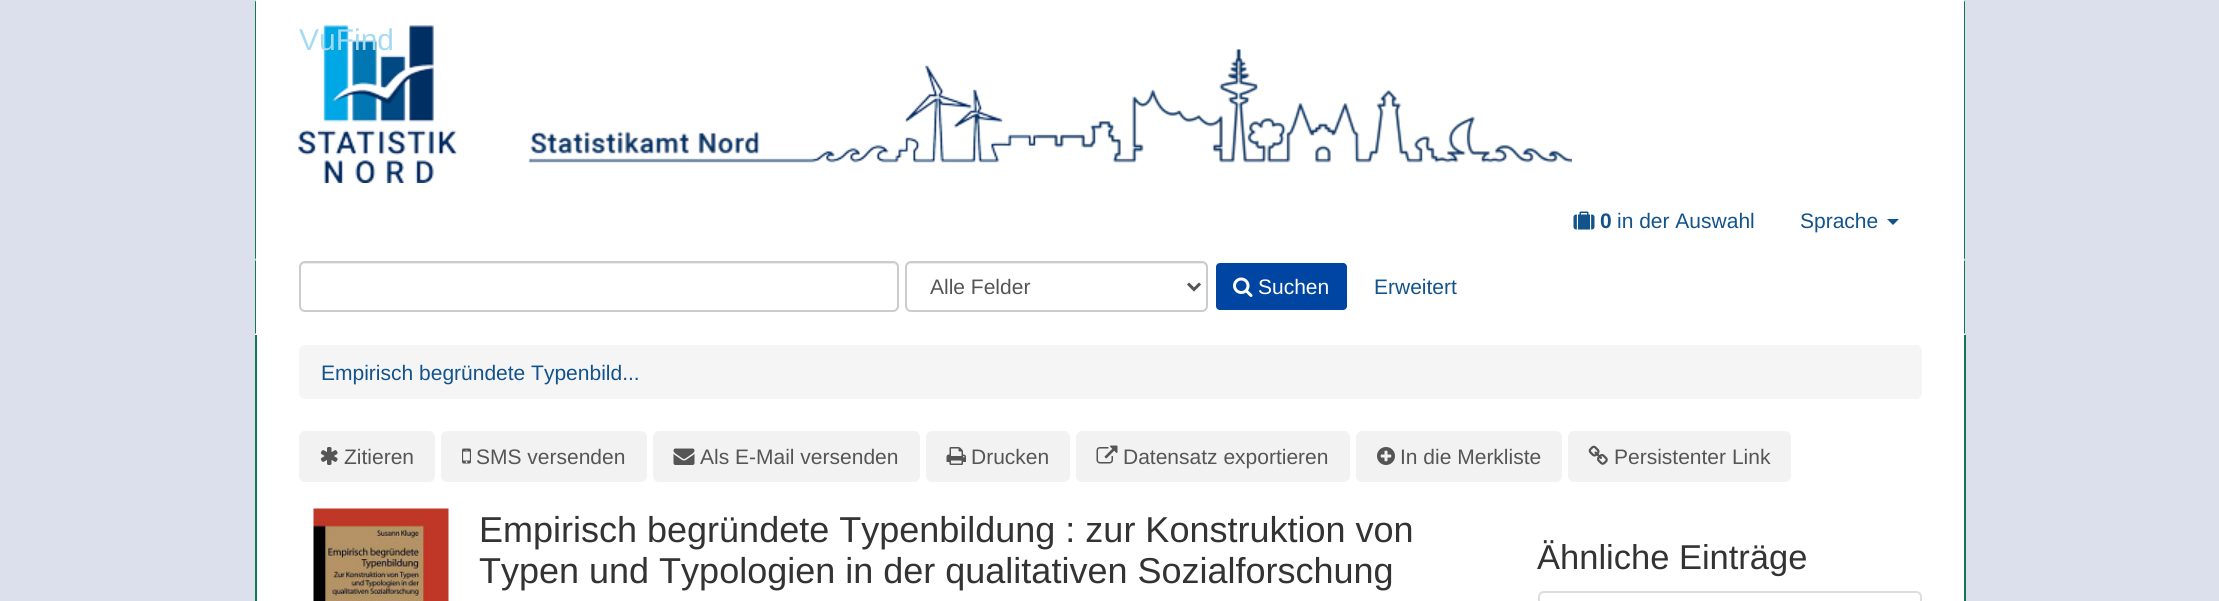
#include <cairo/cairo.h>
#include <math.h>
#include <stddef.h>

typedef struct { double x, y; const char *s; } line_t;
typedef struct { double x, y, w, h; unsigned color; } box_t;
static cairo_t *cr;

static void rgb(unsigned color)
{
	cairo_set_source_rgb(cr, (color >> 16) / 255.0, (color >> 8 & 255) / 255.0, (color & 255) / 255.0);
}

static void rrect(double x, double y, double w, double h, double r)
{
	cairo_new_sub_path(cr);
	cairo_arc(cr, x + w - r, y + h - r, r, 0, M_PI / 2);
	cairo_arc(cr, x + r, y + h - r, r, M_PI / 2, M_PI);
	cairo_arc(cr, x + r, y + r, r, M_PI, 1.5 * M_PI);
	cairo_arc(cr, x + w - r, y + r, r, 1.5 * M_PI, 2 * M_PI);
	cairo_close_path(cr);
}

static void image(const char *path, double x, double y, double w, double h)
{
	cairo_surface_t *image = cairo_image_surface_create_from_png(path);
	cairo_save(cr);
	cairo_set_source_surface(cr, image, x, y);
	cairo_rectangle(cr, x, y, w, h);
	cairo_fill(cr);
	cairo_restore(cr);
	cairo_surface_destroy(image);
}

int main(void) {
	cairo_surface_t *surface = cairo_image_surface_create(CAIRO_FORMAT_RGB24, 2219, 601);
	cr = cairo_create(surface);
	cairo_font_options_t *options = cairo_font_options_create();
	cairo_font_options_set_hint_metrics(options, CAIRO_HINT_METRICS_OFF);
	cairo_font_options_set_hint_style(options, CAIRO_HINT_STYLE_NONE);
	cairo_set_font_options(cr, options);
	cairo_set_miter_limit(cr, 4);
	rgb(0xdbe0ec);
	cairo_paint(cr);
	rgb(0xffffff);
	cairo_rectangle(cr, 255, 0, 1710, 335);
	cairo_fill(cr);
	rgb(0x137752);
	cairo_new_path(cr);
	cairo_move_to(cr, 1965, 0);
	cairo_line_to(cr, 1965, 260);
	cairo_line_to(cr, 1964, 258);
	cairo_line_to(cr, 1964, 2);
	cairo_close_path(cr);
	cairo_fill(cr);
	cairo_new_path(cr);
	cairo_move_to(cr, 255, 260);
	cairo_line_to(cr, 255, 0);
	cairo_line_to(cr, 256, 2);
	cairo_line_to(cr, 256, 258);
	cairo_close_path(cr);
	cairo_fill(cr);
	image("img/1.png", 298, 25, 1274, 158);
	image("img/2.png", 1573, 211, 22, 19);
	rgb(0x12538b);
	cairo_new_path(cr);
	cairo_move_to(cr, 1887, 219);
	cairo_line_to(cr, 1899, 219);
	cairo_line_to(cr, 1893, 225);
	cairo_close_path(cr);
	cairo_fill(cr);
	rgb(0x137752);
	cairo_new_path(cr);
	cairo_move_to(cr, 1965, 260);
	cairo_line_to(cr, 1965, 334);
	cairo_line_to(cr, 1964, 333);
	cairo_line_to(cr, 1964, 261);
	cairo_close_path(cr);
	cairo_fill(cr);
	cairo_new_path(cr);
	cairo_move_to(cr, 255, 334);
	cairo_line_to(cr, 255, 260);
	cairo_line_to(cr, 256, 261);
	cairo_line_to(cr, 256, 333);
	cairo_close_path(cr);
	cairo_fill(cr);
	rgb(0xececec);
	cairo_new_path(cr);
	cairo_move_to(cr, 304, 264);
	cairo_line_to(cr, 892, 264);
	cairo_curve_to(cr, 895, 264, 897, 266, 897, 268);
	cairo_curve_to(cr, 897, 265, 895, 263, 892, 263);
	cairo_line_to(cr, 305, 263);
	cairo_curve_to(cr, 302, 263, 300, 265, 300, 268);
	cairo_curve_to(cr, 300, 266, 302, 264, 304, 264);
	cairo_close_path(cr);
	cairo_fill(cr);
	rrect(300, 262, 598, 49, 5);
	rgb(0xcccccc);
	cairo_stroke(cr);
	rgb(0xececec);
	cairo_new_path(cr);
	cairo_move_to(cr, 910, 264);
	cairo_line_to(cr, 1202, 264);
	cairo_curve_to(cr, 1204, 264, 1206, 266, 1206, 268);
	cairo_curve_to(cr, 1206, 265, 1204, 263, 1201, 263);
	cairo_line_to(cr, 911, 263);
	cairo_curve_to(cr, 908, 263, 906, 265, 906, 268);
	cairo_curve_to(cr, 906, 266, 908, 264, 910, 264);
	cairo_close_path(cr);
	cairo_fill(cr);
	rrect(906, 262, 301, 49, 5);
	rgb(0xcccccc);
	cairo_stroke(cr);
	cairo_new_path(cr);
	cairo_move_to(cr, 1188, 283.5);
	cairo_line_to(cr, 1194, 289.5);
	cairo_line_to(cr, 1200, 283.5);
	rgb(0x555555);
	cairo_set_line_width(cr, 3);
	cairo_stroke(cr);
	rgb(0x0045a1);
	rrect(1215, 262, 133, 49, 5);
	cairo_fill_preserve(cr);
	rgb(0xffffff);
	cairo_set_line_width(cr, 2);
	cairo_stroke(cr);
	image("img/3.png", 1233, 277, 20, 20);
	{
		static const box_t items[] = {
			{257, 335, 1707, 266, 0xffffff},
			{1964, 335, 2, 266, 0x137752},
			{255, 335, 2, 266, 0x137752},
		};
		for (size_t i = 0; i < sizeof items / sizeof *items; i++) {
			rgb(items[i].color);
			cairo_rectangle(cr, items[i].x, items[i].y, items[i].w, items[i].h);
			cairo_fill(cr);
		}
	}
	rgb(0xf5f5f5);
	rrect(299, 345, 1623, 54, 6);
	cairo_fill(cr);
	rgb(0xf2f2f2);
	rrect(299, 431, 136, 51, 6);
	cairo_fill(cr);
	image("img/4.png", 320, 447, 18, 18);
	rrect(441, 431, 206, 51, 6);
	cairo_fill(cr);
	image("img/5.png", 462, 448, 9, 16);
	rrect(653, 431, 267, 51, 6);
	cairo_fill(cr);
	image("img/6.png", 673, 448, 22, 17);
	rrect(926, 431, 144, 51, 6);
	cairo_fill(cr);
	image("img/7.png", 946, 447, 20, 18);
	rrect(1076, 431, 274, 51, 6);
	cairo_fill(cr);
	image("img/8.png", 1096, 445, 22, 19);
	rrect(1356, 431, 206, 51, 6);
	cairo_fill(cr);
	image("img/9.png", 1377, 447, 18, 18);
	rrect(1568, 431, 223, 51, 6);
	cairo_fill(cr);
	image("img/10.png", 1588, 445, 20, 20);
	image("img/11.png", 313, 508, 136, 93);
	cairo_new_path(cr);
	cairo_move_to(cr, 1544, 592);
	cairo_line_to(cr, 1916, 592);
	cairo_curve_to(cr, 1919, 592, 1921, 594, 1921, 597);
	cairo_line_to(cr, 1921, 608);
	cairo_line_to(cr, 1539, 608);
	cairo_line_to(cr, 1539, 597);
	cairo_curve_to(cr, 1539, 594, 1541, 592, 1544, 592);
	cairo_close_path(cr);
	rgb(0xdddddd);
	cairo_stroke(cr);
	cairo_select_font_face(cr, "Liberation Sans", CAIRO_FONT_SLANT_NORMAL, CAIRO_FONT_WEIGHT_NORMAL);
	cairo_set_font_size(cr, 30);
	rgb(0xa5dbf0);
	cairo_move_to(cr, 299, 50);
	cairo_show_text(cr, "VuFind");
	cairo_select_font_face(cr, "Liberation Sans", CAIRO_FONT_SLANT_NORMAL, CAIRO_FONT_WEIGHT_BOLD);
	cairo_set_font_size(cr, 21);
	rgb(0x12538b);
	cairo_move_to(cr, 1600, 228);
	cairo_show_text(cr, "0");
	cairo_select_font_face(cr, "Liberation Sans", CAIRO_FONT_SLANT_NORMAL, CAIRO_FONT_WEIGHT_NORMAL);
	cairo_move_to(cr, 1617, 228);
	cairo_show_text(cr, "in der Auswahl");
	cairo_move_to(cr, 1800, 228);
	cairo_show_text(cr, "Sprache");
	rgb(0x555555);
	cairo_move_to(cr, 930, 294);
	cairo_show_text(cr, "Alle Felder");
	rgb(0xffffff);
	cairo_move_to(cr, 1258, 294);
	cairo_show_text(cr, "Suchen");
	rgb(0x12538b);
	cairo_move_to(cr, 1374, 294);
	cairo_show_text(cr, "Erweitert");
	cairo_move_to(cr, 321, 380);
	cairo_show_text(cr, "Empirisch begründete Typenbild...");
	rgb(0x555555);
	{
		static const line_t items[] = {
			{344, 464, "Zitieren"},
			{476, 464, "SMS versenden"},
			{700, 464, "Als E-Mail versenden"},
			{971, 464, "Drucken"},
			{1123, 464, "Datensatz exportieren"},
			{1400, 464, "In die Merkliste"},
			{1614, 464, "Persistenter Link"},
		};
		for (size_t i = 0; i < sizeof items / sizeof *items; i++) {
			cairo_move_to(cr, items[i].x, items[i].y);
			cairo_show_text(cr, items[i].s);
		}
	}
	cairo_set_font_size(cr, 36);
	rgb(0x333333);
	cairo_move_to(cr, 479, 542);
	cairo_show_text(cr, "Empirisch begründete Typenbildung : zur Konstruktion von");
	cairo_move_to(cr, 479, 583);
	cairo_show_text(cr, "Typen und Typologien in der qualitativen Sozialforschung");
	cairo_set_font_size(cr, 34.5);
	cairo_move_to(cr, 1537, 569);
	cairo_show_text(cr, "Ähnliche Einträge");
	cairo_surface_write_to_png(surface, "page.png");
	cairo_font_options_destroy(options);
	cairo_destroy(cr);
	cairo_surface_destroy(surface);
	return 0;
}
